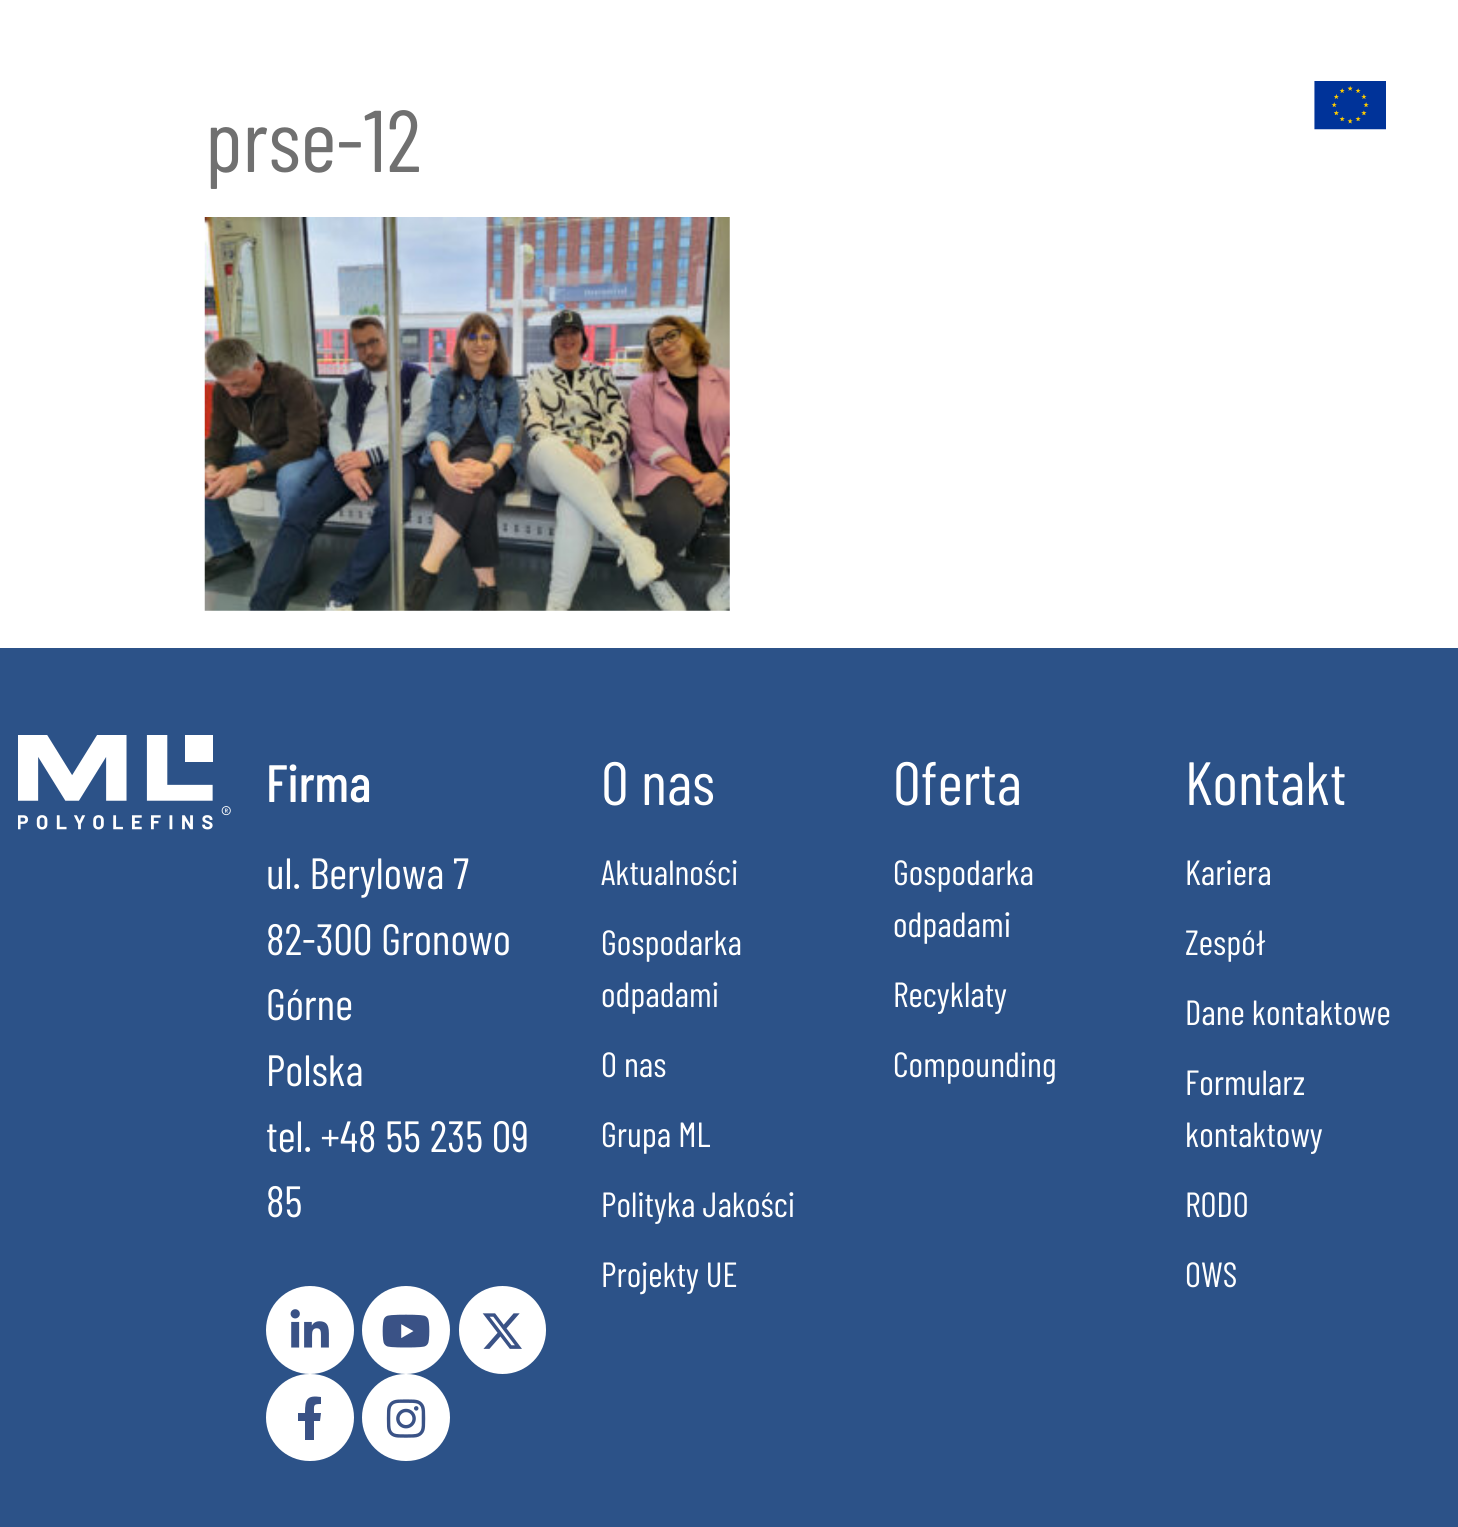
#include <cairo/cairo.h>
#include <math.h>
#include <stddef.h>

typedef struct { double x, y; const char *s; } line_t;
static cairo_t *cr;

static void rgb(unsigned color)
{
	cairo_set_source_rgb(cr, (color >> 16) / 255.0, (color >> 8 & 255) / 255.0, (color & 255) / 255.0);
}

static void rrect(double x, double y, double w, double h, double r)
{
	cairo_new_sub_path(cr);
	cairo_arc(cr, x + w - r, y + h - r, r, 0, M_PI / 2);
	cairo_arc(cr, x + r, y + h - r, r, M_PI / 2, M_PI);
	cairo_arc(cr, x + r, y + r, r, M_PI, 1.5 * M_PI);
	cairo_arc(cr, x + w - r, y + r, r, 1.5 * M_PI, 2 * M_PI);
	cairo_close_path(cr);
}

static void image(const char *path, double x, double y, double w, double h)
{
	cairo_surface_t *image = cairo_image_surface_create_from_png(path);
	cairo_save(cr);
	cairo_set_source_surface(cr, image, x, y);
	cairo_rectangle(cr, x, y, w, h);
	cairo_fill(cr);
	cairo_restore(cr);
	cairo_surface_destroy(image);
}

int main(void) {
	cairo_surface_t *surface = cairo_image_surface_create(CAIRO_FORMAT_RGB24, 1458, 1527);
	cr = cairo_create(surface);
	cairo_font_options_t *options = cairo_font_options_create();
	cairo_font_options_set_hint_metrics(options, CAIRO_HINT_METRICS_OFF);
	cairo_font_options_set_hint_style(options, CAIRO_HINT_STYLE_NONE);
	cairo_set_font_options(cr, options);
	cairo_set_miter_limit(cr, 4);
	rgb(0xffffff);
	cairo_paint(cr);
	image("img/1.png", 204, 217, 526, 394);
	image("img/2.png", 1314, 81, 72, 49);
	rgb(0x2c5288);
	cairo_rectangle(cr, 0, 648, 1458, 879);
	cairo_fill(cr);
	image("img/3.png", 18, 735, 213, 95);
	rgb(0xffffff);
	cairo_arc(cr, 310, 1330, 44, 0, 2 * M_PI);
	cairo_fill(cr);
	image("img/4.png", 290, 1309, 39, 39);
	cairo_arc(cr, 406, 1330, 44, 0, 2 * M_PI);
	cairo_fill(cr);
	image("img/5.png", 382, 1314, 48, 34);
	rrect(459, 1286, 87, 88, 43.5);
	cairo_fill(cr);
	image("img/6.png", 482, 1313, 40, 36);
	rrect(266, 1374, 88, 87, 43.5);
	cairo_fill(cr);
	rgb(0x3a5286);
	cairo_new_path(cr);
	cairo_move_to(cr, 320, 1421);
	cairo_line_to(cr, 314, 1421);
	cairo_line_to(cr, 314, 1440);
	cairo_line_to(cr, 305, 1440);
	cairo_line_to(cr, 305, 1421);
	cairo_line_to(cr, 298, 1421);
	cairo_line_to(cr, 298, 1413);
	cairo_line_to(cr, 305, 1413);
	cairo_curve_to(cr, 305, 1399, 307, 1395, 321, 1397);
	cairo_line_to(cr, 321, 1404);
	cairo_curve_to(cr, 313, 1404, 314, 1405, 314, 1413);
	cairo_line_to(cr, 321, 1413);
	cairo_close_path(cr);
	cairo_fill(cr);
	rgb(0xffffff);
	rrect(362, 1374, 88, 87, 43.5);
	cairo_fill(cr);
	image("img/7.png", 386, 1399, 40, 39);
	cairo_select_font_face(cr, "Barlow Condensed", CAIRO_FONT_SLANT_NORMAL, CAIRO_FONT_WEIGHT_NORMAL);
	cairo_set_font_size(cr, 87.5);
	rgb(0x707070);
	cairo_move_to(cr, 205, 172);
	cairo_show_text(cr, "prse-12");
	cairo_select_font_face(cr, "Barlow Condensed Medium", CAIRO_FONT_SLANT_NORMAL, CAIRO_FONT_WEIGHT_NORMAL);
	cairo_set_font_size(cr, 52.5);
	rgb(0xffffff);
	cairo_move_to(cr, 266, 802);
	cairo_show_text(cr, "Firma");
	cairo_select_font_face(cr, "Barlow Condensed", CAIRO_FONT_SLANT_NORMAL, CAIRO_FONT_WEIGHT_NORMAL);
	cairo_set_font_size(cr, 43.75);
	{
		static const line_t items[] = {
			{266, 889, "ul. Berylowa 7"},
			{266, 955, "82-300 Gronowo"},
			{266, 1020, "Górne"},
			{266, 1086, "Polska"},
			{266, 1152, "tel. +48 55 235 09"},
			{266, 1217, "85"},
		};
		for (size_t i = 0; i < sizeof items / sizeof *items; i++) {
			cairo_move_to(cr, items[i].x, items[i].y);
			cairo_show_text(cr, items[i].s);
		}
	}
	cairo_set_font_size(cr, 61);
	cairo_move_to(cr, 601, 805);
	cairo_show_text(cr, "O nas");
	cairo_set_font_size(cr, 35);
	{
		static const line_t items[] = {
			{601, 885, "Aktualności"},
			{601, 955, "Gospodarka"},
			{601, 1007, "odpadami"},
			{601, 1077, "O nas"},
			{601, 1147, "Grupa ML"},
			{601, 1217, "Polityka Jakości"},
			{601, 1287, "Projekty UE"},
		};
		for (size_t i = 0; i < sizeof items / sizeof *items; i++) {
			cairo_move_to(cr, items[i].x, items[i].y);
			cairo_show_text(cr, items[i].s);
		}
	}
	cairo_set_font_size(cr, 61);
	cairo_move_to(cr, 893, 805);
	cairo_show_text(cr, "Oferta");
	cairo_set_font_size(cr, 35);
	{
		static const line_t items[] = {
			{893, 885, "Gospodarka"},
			{893, 937, "odpadami"},
			{893, 1007, "Recyklaty"},
			{893, 1077, "Compounding"},
		};
		for (size_t i = 0; i < sizeof items / sizeof *items; i++) {
			cairo_move_to(cr, items[i].x, items[i].y);
			cairo_show_text(cr, items[i].s);
		}
	}
	cairo_set_font_size(cr, 61);
	cairo_move_to(cr, 1185, 805);
	cairo_show_text(cr, "Kontakt");
	cairo_set_font_size(cr, 35);
	{
		static const line_t items[] = {
			{1185, 885, "Kariera"},
			{1185, 955, "Zespół"},
			{1185, 1025, "Dane kontaktowe"},
			{1185, 1095, "Formularz"},
			{1185, 1147, "kontaktowy"},
			{1185, 1217, "RODO"},
			{1185, 1287, "OWS"},
		};
		for (size_t i = 0; i < sizeof items / sizeof *items; i++) {
			cairo_move_to(cr, items[i].x, items[i].y);
			cairo_show_text(cr, items[i].s);
		}
	}
	cairo_surface_write_to_png(surface, "page.png");
	cairo_font_options_destroy(options);
	cairo_destroy(cr);
	cairo_surface_destroy(surface);
	return 0;
}
